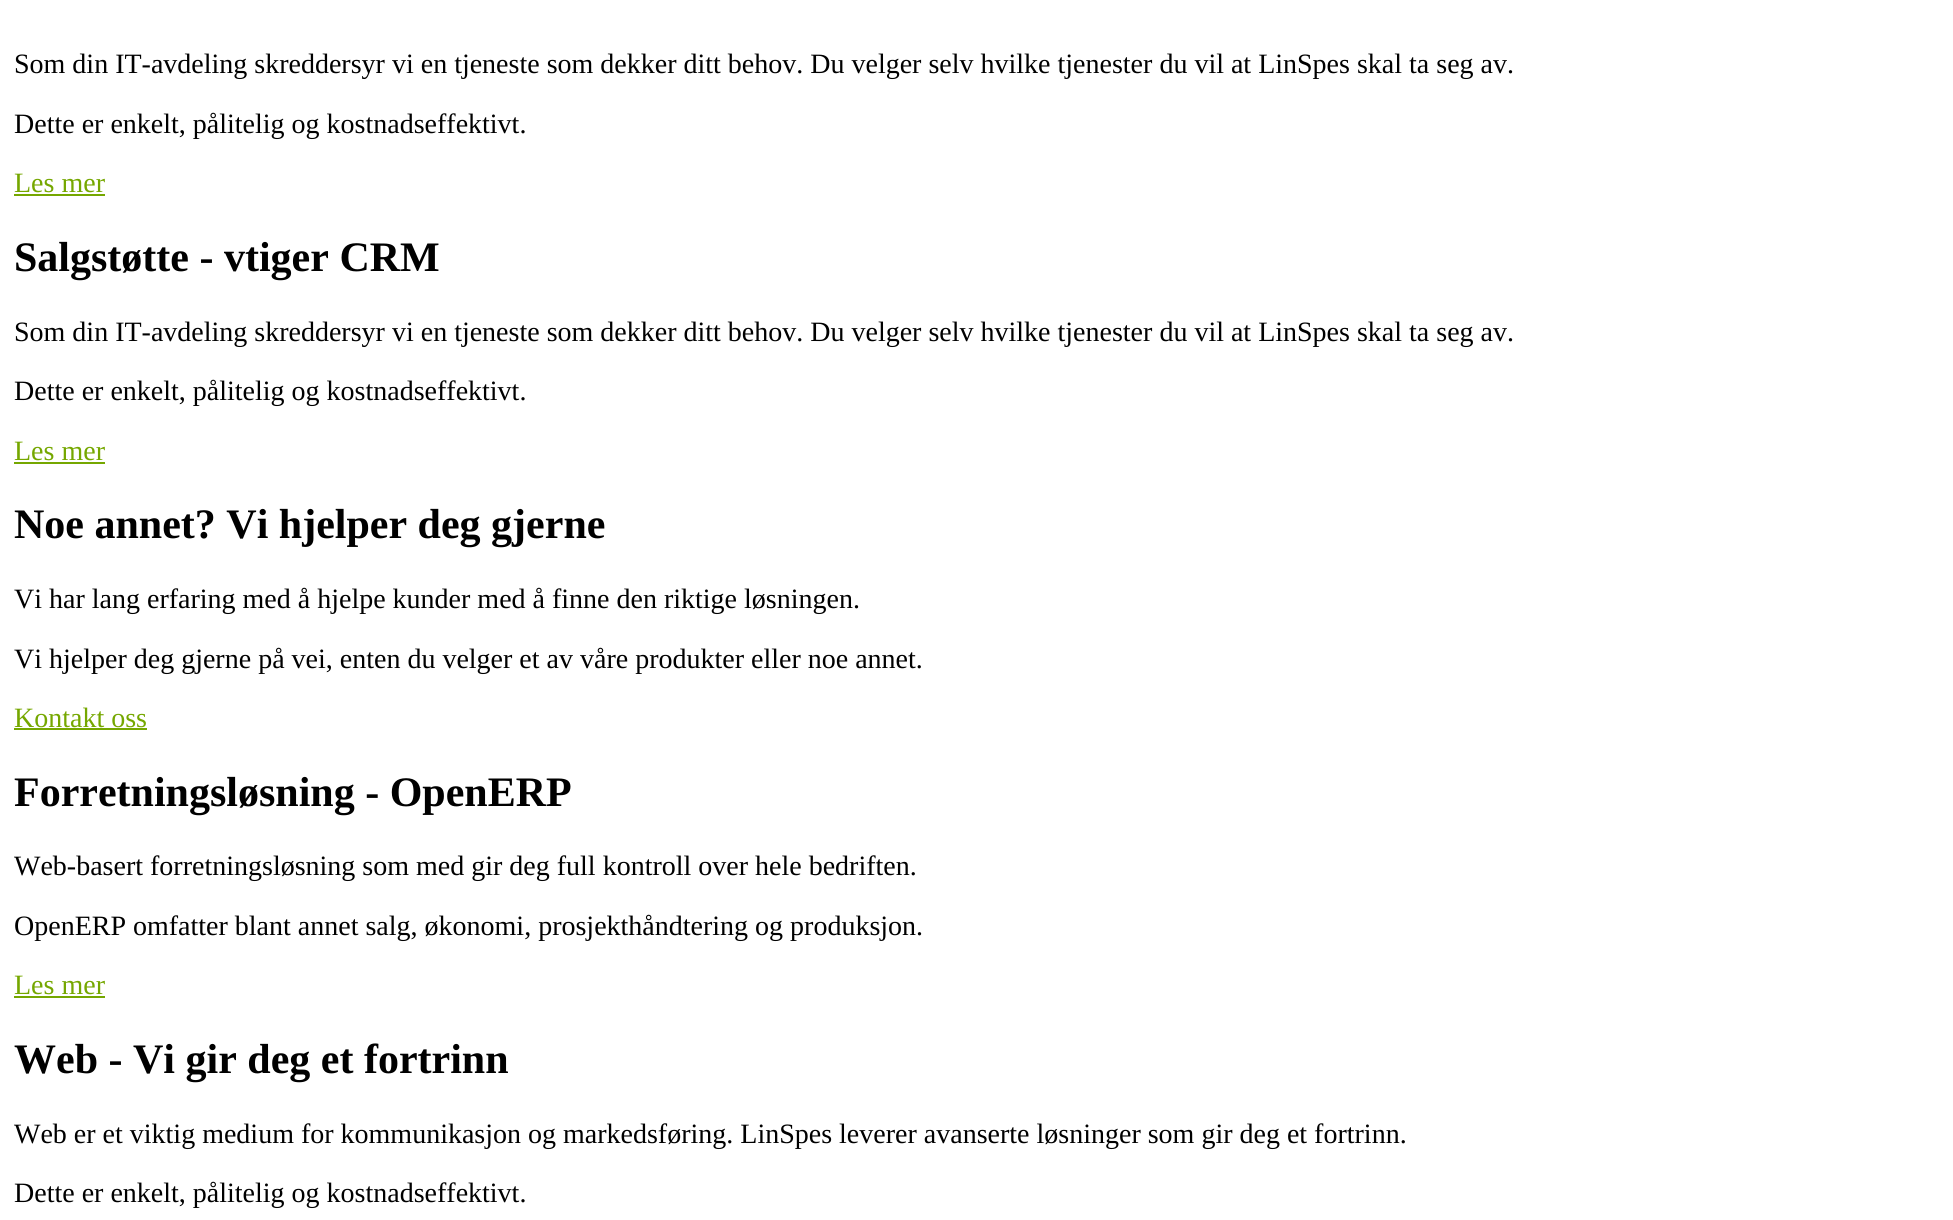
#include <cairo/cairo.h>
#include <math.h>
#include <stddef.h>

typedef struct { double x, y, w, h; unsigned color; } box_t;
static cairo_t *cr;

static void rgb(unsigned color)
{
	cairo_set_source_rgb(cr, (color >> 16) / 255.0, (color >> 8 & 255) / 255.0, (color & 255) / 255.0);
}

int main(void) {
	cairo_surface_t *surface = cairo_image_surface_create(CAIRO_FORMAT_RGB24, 1953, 1220);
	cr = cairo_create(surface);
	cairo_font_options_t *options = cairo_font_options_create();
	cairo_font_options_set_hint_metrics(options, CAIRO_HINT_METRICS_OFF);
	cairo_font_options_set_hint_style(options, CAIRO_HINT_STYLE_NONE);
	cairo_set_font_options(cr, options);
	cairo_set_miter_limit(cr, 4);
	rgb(0xffffff);
	cairo_paint(cr);
	{
		static const box_t items[] = {
			{14, 194, 91, 2, 0x75a700},
			{14, 462, 91, 2, 0x75a700},
			{14, 728, 133, 2, 0x75a700},
			{14, 996, 91, 2, 0x75a700},
		};
		for (size_t i = 0; i < sizeof items / sizeof *items; i++) {
			rgb(items[i].color);
			cairo_rectangle(cr, items[i].x, items[i].y, items[i].w, items[i].h);
			cairo_fill(cr);
		}
	}
	cairo_select_font_face(cr, "Liberation Serif", CAIRO_FONT_SLANT_NORMAL, CAIRO_FONT_WEIGHT_NORMAL);
	cairo_set_font_size(cr, 28);
	rgb(0x000000);
	cairo_move_to(cr, 14, 73);
	cairo_show_text(cr, "Som din IT-avdeling skreddersyr vi en tjeneste som dekker ditt behov. Du velger selv hvilke tjenester du vil at LinSpes skal ta seg av.");
	cairo_move_to(cr, 14, 133);
	cairo_show_text(cr, "Dette er enkelt, pålitelig og kostnadseffektivt.");
	rgb(0x75a700);
	cairo_move_to(cr, 14, 192);
	cairo_show_text(cr, "Les mer");
	cairo_select_font_face(cr, "Liberation Serif", CAIRO_FONT_SLANT_NORMAL, CAIRO_FONT_WEIGHT_BOLD);
	cairo_set_font_size(cr, 42);
	rgb(0x000000);
	cairo_move_to(cr, 14, 271);
	cairo_show_text(cr, "Salgstøtte - vtiger CRM");
	cairo_select_font_face(cr, "Liberation Serif", CAIRO_FONT_SLANT_NORMAL, CAIRO_FONT_WEIGHT_NORMAL);
	cairo_set_font_size(cr, 28);
	cairo_move_to(cr, 14, 341);
	cairo_show_text(cr, "Som din IT-avdeling skreddersyr vi en tjeneste som dekker ditt behov. Du velger selv hvilke tjenester du vil at LinSpes skal ta seg av.");
	cairo_move_to(cr, 14, 400);
	cairo_show_text(cr, "Dette er enkelt, pålitelig og kostnadseffektivt.");
	rgb(0x75a700);
	cairo_move_to(cr, 14, 460);
	cairo_show_text(cr, "Les mer");
	cairo_select_font_face(cr, "Liberation Serif", CAIRO_FONT_SLANT_NORMAL, CAIRO_FONT_WEIGHT_BOLD);
	cairo_set_font_size(cr, 42);
	rgb(0x000000);
	cairo_move_to(cr, 14, 538);
	cairo_show_text(cr, "Noe annet? Vi hjelper deg gjerne");
	cairo_select_font_face(cr, "Liberation Serif", CAIRO_FONT_SLANT_NORMAL, CAIRO_FONT_WEIGHT_NORMAL);
	cairo_set_font_size(cr, 28);
	cairo_move_to(cr, 14, 608);
	cairo_show_text(cr, "Vi har lang erfaring med å hjelpe kunder med å finne den riktige løsningen.");
	cairo_move_to(cr, 14, 668);
	cairo_show_text(cr, "Vi hjelper deg gjerne på vei, enten du velger et av våre produkter eller noe annet.");
	rgb(0x75a700);
	cairo_move_to(cr, 14, 727);
	cairo_show_text(cr, "Kontakt oss");
	cairo_select_font_face(cr, "Liberation Serif", CAIRO_FONT_SLANT_NORMAL, CAIRO_FONT_WEIGHT_BOLD);
	cairo_set_font_size(cr, 42);
	rgb(0x000000);
	cairo_move_to(cr, 14, 806);
	cairo_show_text(cr, "Forretningsløsning - OpenERP");
	cairo_select_font_face(cr, "Liberation Serif", CAIRO_FONT_SLANT_NORMAL, CAIRO_FONT_WEIGHT_NORMAL);
	cairo_set_font_size(cr, 28);
	cairo_move_to(cr, 14, 875);
	cairo_show_text(cr, "Web-basert forretningsløsning som med gir deg full kontroll over hele bedriften.");
	cairo_move_to(cr, 14, 935);
	cairo_show_text(cr, "OpenERP omfatter blant annet salg, økonomi, prosjekthåndtering og produksjon.");
	rgb(0x75a700);
	cairo_move_to(cr, 14, 994);
	cairo_show_text(cr, "Les mer");
	cairo_select_font_face(cr, "Liberation Serif", CAIRO_FONT_SLANT_NORMAL, CAIRO_FONT_WEIGHT_BOLD);
	cairo_set_font_size(cr, 42);
	rgb(0x000000);
	cairo_move_to(cr, 14, 1073);
	cairo_show_text(cr, "Web - Vi gir deg et fortrinn");
	cairo_select_font_face(cr, "Liberation Serif", CAIRO_FONT_SLANT_NORMAL, CAIRO_FONT_WEIGHT_NORMAL);
	cairo_set_font_size(cr, 28);
	cairo_move_to(cr, 14, 1143);
	cairo_show_text(cr, "Web er et viktig medium for kommunikasjon og markedsføring. LinSpes leverer avanserte løsninger som gir deg et fortrinn.");
	cairo_move_to(cr, 14, 1202);
	cairo_show_text(cr, "Dette er enkelt, pålitelig og kostnadseffektivt.");
	cairo_surface_write_to_png(surface, "page.png");
	cairo_font_options_destroy(options);
	cairo_destroy(cr);
	cairo_surface_destroy(surface);
	return 0;
}
